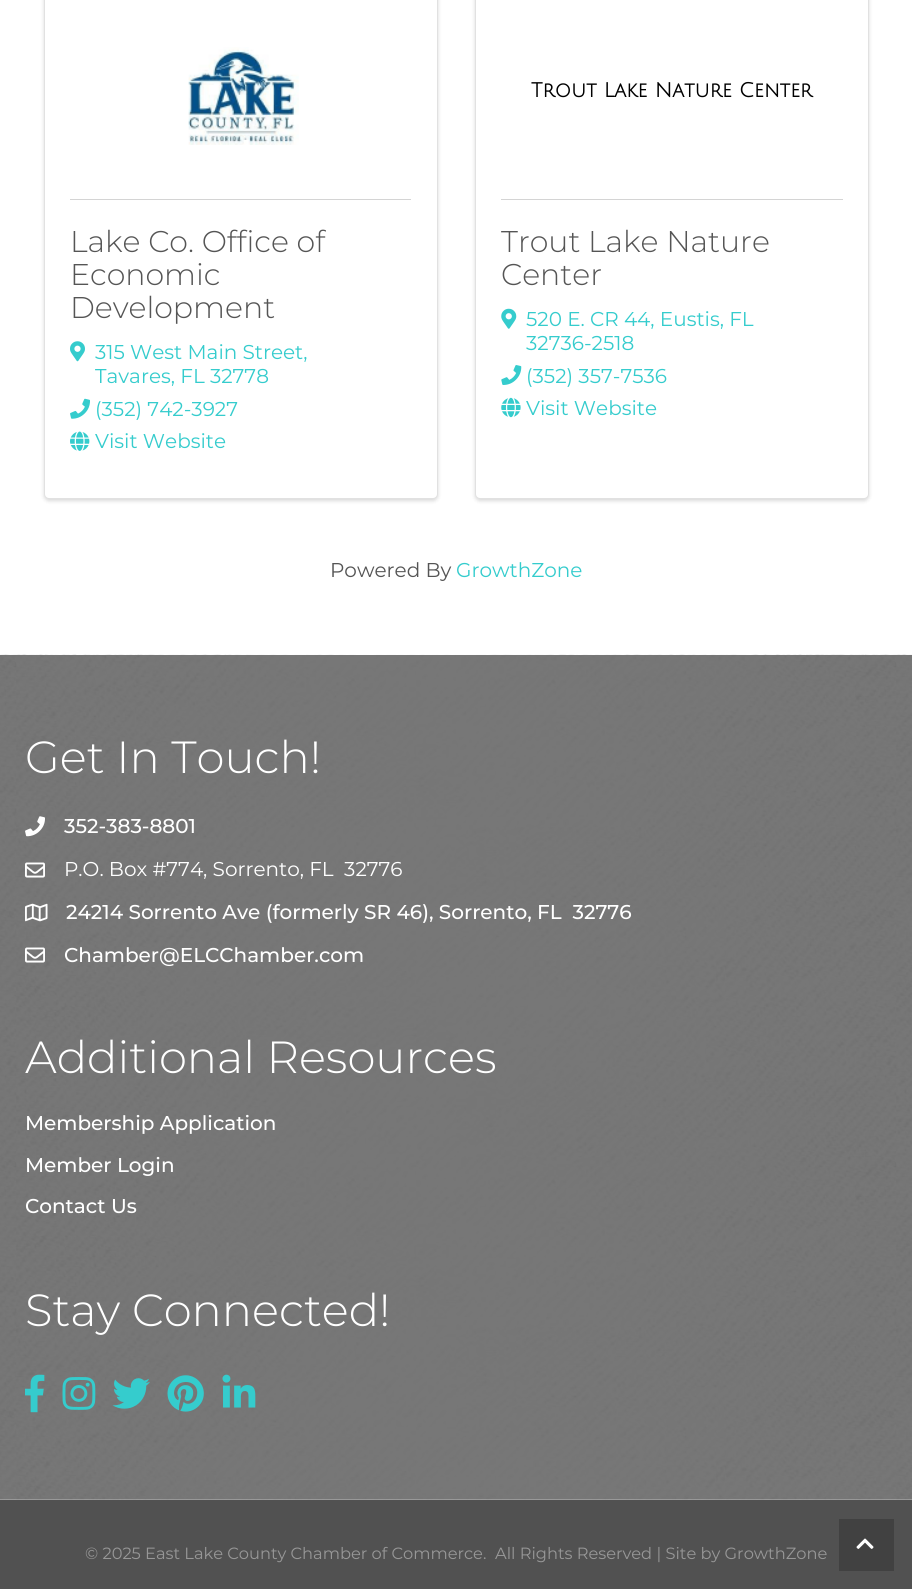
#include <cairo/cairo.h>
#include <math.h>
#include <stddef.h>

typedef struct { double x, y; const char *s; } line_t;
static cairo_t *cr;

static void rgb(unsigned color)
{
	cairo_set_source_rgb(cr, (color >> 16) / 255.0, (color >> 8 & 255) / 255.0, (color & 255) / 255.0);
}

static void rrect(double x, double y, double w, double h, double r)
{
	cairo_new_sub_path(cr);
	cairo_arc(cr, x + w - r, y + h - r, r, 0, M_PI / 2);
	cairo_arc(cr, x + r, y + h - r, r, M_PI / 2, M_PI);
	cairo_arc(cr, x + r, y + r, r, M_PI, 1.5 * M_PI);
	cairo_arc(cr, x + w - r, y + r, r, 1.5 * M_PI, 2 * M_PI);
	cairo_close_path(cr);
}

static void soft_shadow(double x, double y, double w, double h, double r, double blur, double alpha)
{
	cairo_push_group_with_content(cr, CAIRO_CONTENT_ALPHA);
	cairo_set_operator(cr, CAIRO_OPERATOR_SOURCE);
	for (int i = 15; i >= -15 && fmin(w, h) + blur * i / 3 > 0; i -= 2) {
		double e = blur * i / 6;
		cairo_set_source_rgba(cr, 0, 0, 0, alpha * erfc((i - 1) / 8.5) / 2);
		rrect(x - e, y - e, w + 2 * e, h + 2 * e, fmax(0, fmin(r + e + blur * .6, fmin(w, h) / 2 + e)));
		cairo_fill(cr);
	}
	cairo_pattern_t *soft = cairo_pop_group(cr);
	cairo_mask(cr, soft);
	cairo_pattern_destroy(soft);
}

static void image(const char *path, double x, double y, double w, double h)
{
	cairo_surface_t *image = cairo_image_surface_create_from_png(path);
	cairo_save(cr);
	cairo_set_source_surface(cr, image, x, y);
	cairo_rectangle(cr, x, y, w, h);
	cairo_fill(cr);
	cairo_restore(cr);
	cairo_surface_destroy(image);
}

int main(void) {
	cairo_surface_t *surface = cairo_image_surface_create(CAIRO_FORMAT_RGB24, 912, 1589);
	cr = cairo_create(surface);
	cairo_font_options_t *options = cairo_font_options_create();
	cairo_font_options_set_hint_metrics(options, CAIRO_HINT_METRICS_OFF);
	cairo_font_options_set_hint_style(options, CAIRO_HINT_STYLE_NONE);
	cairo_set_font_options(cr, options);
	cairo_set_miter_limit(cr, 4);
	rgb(0xffffff);
	cairo_paint(cr);
	rgb(0x000000);
	soft_shadow(44, -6, 394, 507, 5, 2, 0.15);
	rgb(0xffffff);
	rrect(44, -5, 394, 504, 5);
	cairo_fill(cr);
	rrect(44.5, -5.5, 393, 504, 4.5);
	cairo_set_source_rgba(cr, 0, 0, 0, 0.12);
	cairo_set_line_width(cr, 1);
	cairo_stroke(cr);
	image("img/1.png", 188, 47, 111, 98);
	rgb(0xd4d4d4);
	cairo_rectangle(cr, 70, 199, 341, 1);
	cairo_fill(cr);
	image("img/2.png", 70, 341, 15, 21);
	image("img/3.png", 70, 398, 20, 21);
	image("img/4.png", 70, 431, 20, 20);
	rgb(0x000000);
	soft_shadow(475, -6, 394, 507, 5, 2, 0.15);
	rgb(0xffffff);
	rrect(475, -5, 394, 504, 5);
	cairo_fill(cr);
	rrect(475.5, -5.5, 393, 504, 4.5);
	cairo_set_source_rgba(cr, 0, 0, 0, 0.12);
	cairo_stroke(cr);
	rgb(0xd4d4d4);
	cairo_rectangle(cr, 501, 199, 342, 1);
	cairo_fill(cr);
	image("img/5.png", 501, 308, 16, 21);
	image("img/6.png", 501, 365, 21, 20);
	image("img/7.png", 501, 397, 20, 21);
	image("img/8.png", 0, 654, 912, 846);
	image("img/9.png", 25, 816, 20, 21);
	image("img/10.png", 25, 862, 20, 16);
	image("img/11.png", 25, 903, 23, 19);
	image("img/12.png", 25, 947, 20, 16);
	image("img/13.png", 25, 1374, 20, 39);
	image("img/14.png", 62, 1377, 34, 33);
	image("img/15.png", 112, 1378, 38, 31);
	image("img/16.png", 167, 1375, 37, 37);
	image("img/17.png", 222, 1374, 34, 34);
	rgb(0x515151);
	cairo_rectangle(cr, 0, 1500, 912, 89);
	cairo_fill(cr);
	rgb(0x414141);
	cairo_rectangle(cr, 839, 1519, 55, 52);
	cairo_fill(cr);
	image("img/18.png", 856, 1538, 18, 11);
	cairo_select_font_face(cr, "Montserrat Light", CAIRO_FONT_SLANT_NORMAL, CAIRO_FONT_WEIGHT_NORMAL);
	cairo_set_font_size(cr, 30);
	rgb(0x555555);
	{
		static const line_t items[] = {
			{70, 252, "Lake Co. Office of"},
			{70, 285, "Economic"},
			{70, 318, "Development"},
		};
		for (size_t i = 0; i < sizeof items / sizeof *items; i++) {
			cairo_move_to(cr, items[i].x, items[i].y);
			cairo_show_text(cr, items[i].s);
		}
	}
	cairo_select_font_face(cr, "Montserrat", CAIRO_FONT_SLANT_NORMAL, CAIRO_FONT_WEIGHT_NORMAL);
	cairo_set_font_size(cr, 20);
	rgb(0x35cccd);
	{
		static const line_t items[] = {
			{95, 359, "315 West Main Street,"},
			{95, 383, "Tavares, FL 32778"},
			{95, 416, "(352) 742-3927"},
			{95, 448, "Visit Website"},
		};
		for (size_t i = 0; i < sizeof items / sizeof *items; i++) {
			cairo_move_to(cr, items[i].x, items[i].y);
			cairo_show_text(cr, items[i].s);
		}
	}
	cairo_select_font_face(cr, "Julius Sans One", CAIRO_FONT_SLANT_NORMAL, CAIRO_FONT_WEIGHT_BOLD);
	rgb(0x000000);
	cairo_move_to(cr, 531, 97);
	cairo_show_text(cr, "Trout Lake Nature Center");
	cairo_select_font_face(cr, "Montserrat Light", CAIRO_FONT_SLANT_NORMAL, CAIRO_FONT_WEIGHT_NORMAL);
	cairo_set_font_size(cr, 30);
	rgb(0x555555);
	cairo_move_to(cr, 501, 252);
	cairo_show_text(cr, "Trout Lake Nature");
	cairo_move_to(cr, 501, 285);
	cairo_show_text(cr, "Center");
	cairo_select_font_face(cr, "Montserrat", CAIRO_FONT_SLANT_NORMAL, CAIRO_FONT_WEIGHT_NORMAL);
	cairo_set_font_size(cr, 20);
	rgb(0x35cccd);
	{
		static const line_t items[] = {
			{526, 326, "520 E. CR 44, Eustis, FL"},
			{526, 350, "32736-2518"},
			{526, 383, "(352) 357-7536"},
			{526, 415, "Visit Website"},
		};
		for (size_t i = 0; i < sizeof items / sizeof *items; i++) {
			cairo_move_to(cr, items[i].x, items[i].y);
			cairo_show_text(cr, items[i].s);
		}
	}
	rgb(0x555555);
	cairo_move_to(cr, 330, 577);
	cairo_show_text(cr, "Powered By");
	rgb(0x35cccd);
	cairo_move_to(cr, 456, 577);
	cairo_show_text(cr, "GrowthZone");
	cairo_select_font_face(cr, "Montserrat Light", CAIRO_FONT_SLANT_NORMAL, CAIRO_FONT_WEIGHT_NORMAL);
	cairo_set_font_size(cr, 45);
	rgb(0xffffff);
	cairo_move_to(cr, 25, 773);
	cairo_show_text(cr, "Get In Touch!");
	cairo_select_font_face(cr, "Montserrat Medium", CAIRO_FONT_SLANT_NORMAL, CAIRO_FONT_WEIGHT_NORMAL);
	cairo_set_font_size(cr, 20);
	cairo_move_to(cr, 64, 833);
	cairo_show_text(cr, "352-383-8801");
	cairo_select_font_face(cr, "Montserrat", CAIRO_FONT_SLANT_NORMAL, CAIRO_FONT_WEIGHT_NORMAL);
	cairo_move_to(cr, 64, 876);
	cairo_show_text(cr, "P.O. Box #774, Sorrento, FL  32776");
	cairo_select_font_face(cr, "Montserrat Medium", CAIRO_FONT_SLANT_NORMAL, CAIRO_FONT_WEIGHT_NORMAL);
	cairo_move_to(cr, 66, 919);
	cairo_show_text(cr, "24214 Sorrento Ave (formerly SR 46), Sorrento, FL  32776");
	cairo_move_to(cr, 64, 962);
	cairo_show_text(cr, "Chamber@ELCChamber.com");
	cairo_select_font_face(cr, "Montserrat Light", CAIRO_FONT_SLANT_NORMAL, CAIRO_FONT_WEIGHT_NORMAL);
	cairo_set_font_size(cr, 45);
	cairo_move_to(cr, 25, 1073);
	cairo_show_text(cr, "Additional Resources");
	cairo_select_font_face(cr, "Montserrat Medium", CAIRO_FONT_SLANT_NORMAL, CAIRO_FONT_WEIGHT_NORMAL);
	cairo_set_font_size(cr, 20);
	{
		static const line_t items[] = {
			{25, 1130, "Membership Application"},
			{25, 1172, "Member Login"},
			{25, 1213, "Contact Us"},
		};
		for (size_t i = 0; i < sizeof items / sizeof *items; i++) {
			cairo_move_to(cr, items[i].x, items[i].y);
			cairo_show_text(cr, items[i].s);
		}
	}
	cairo_select_font_face(cr, "Montserrat Light", CAIRO_FONT_SLANT_NORMAL, CAIRO_FONT_WEIGHT_NORMAL);
	cairo_set_font_size(cr, 45);
	cairo_move_to(cr, 25, 1326);
	cairo_show_text(cr, "Stay Connected!");
	cairo_select_font_face(cr, "Montserrat", CAIRO_FONT_SLANT_NORMAL, CAIRO_FONT_WEIGHT_NORMAL);
	cairo_set_font_size(cr, 16.25);
	rgb(0x979797);
	cairo_move_to(cr, 85, 1559);
	cairo_show_text(cr, "© 2025 East Lake County Chamber of Commerce.");
	cairo_move_to(cr, 495, 1559);
	cairo_show_text(cr, "All Rights Reserved | Site by GrowthZone");
	cairo_surface_write_to_png(surface, "page.png");
	cairo_font_options_destroy(options);
	cairo_destroy(cr);
	cairo_surface_destroy(surface);
	return 0;
}
